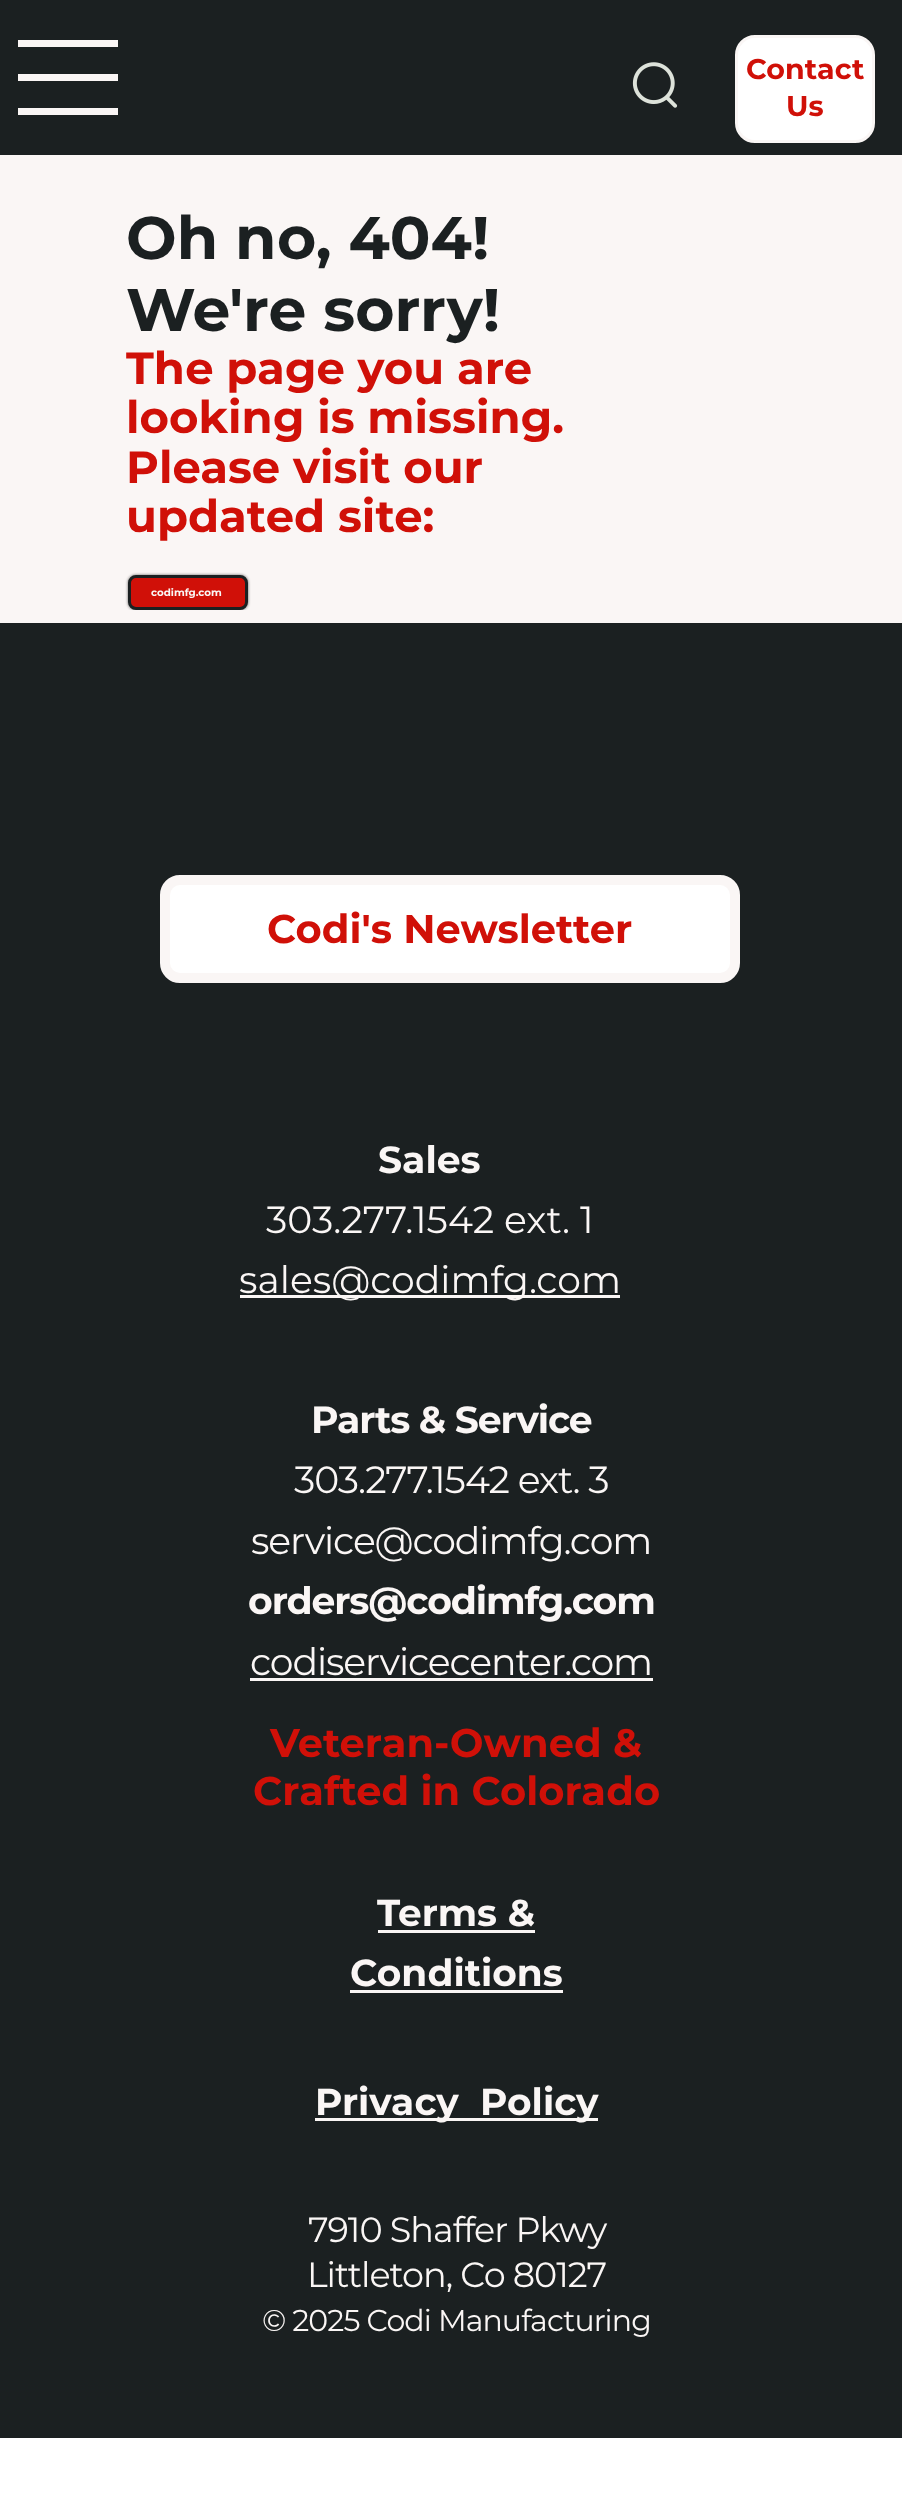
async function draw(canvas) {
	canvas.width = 902;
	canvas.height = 2515;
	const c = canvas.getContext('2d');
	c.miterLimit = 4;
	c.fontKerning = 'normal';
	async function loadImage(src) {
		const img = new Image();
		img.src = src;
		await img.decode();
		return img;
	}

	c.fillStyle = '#fff';
	c.fillRect(0, 0, 902, 2515);
	c.fillStyle = '#1b2021';
	c.fillRect(0, 0, 902, 155);
	c.fillStyle = '#faf6f5';
	c.beginPath();
	c.moveTo(118, 47);
	c.lineTo(18, 47);
	c.lineTo(18, 40);
	c.lineTo(118, 40);
	c.closePath();
	c.moveTo(118, 81);
	c.lineTo(18, 81);
	c.lineTo(18, 74);
	c.lineTo(118, 74);
	c.closePath();
	c.moveTo(118, 115);
	c.lineTo(18, 115);
	c.lineTo(18, 108);
	c.lineTo(118, 108);
	c.closePath();
	c.fill('evenodd');
	c.drawImage(await loadImage('img1.png'), 632, 62, 46, 46);
	c.fillStyle = '#fff';
	c.beginPath();
	c.roundRect(736.5, 36.5, 137, 105, 18.5);
	c.fill();
	c.strokeStyle = '#faf6f5';
	c.lineWidth = 3;
	c.stroke();
	c.font = 'bold 28.5px Montserrat';
	c.fillStyle = '#d01008';
	c.fillText('Contact', 746, 79);
	c.fillText('Us', 786, 116);
	c.fillStyle = '#faf6f5';
	c.fillRect(0, 155, 902, 455);
	c.font = 'bold 60px Montserrat';
	c.fillStyle = '#1b2021';
	c.fillText('Oh no, 404!', 126, 259);
	c.fillText('We\'re sorry!', 126, 331);
	c.font = 'bold 45px Montserrat';
	c.fillStyle = '#d01008';
	for (const [text, x, y] of [
		['The page you are', 126, 384],
		['looking is missing.', 126, 433],
		['Please visit our', 126, 483],
		['updated site:', 126, 532],
	]) {
		c.fillText(text, x, y);
	}
	c.fillStyle = '#00000099';
	c.filter = 'blur(1.5px)';
	c.beginPath();
	c.roundRect(128, 575, 120, 35, 8);
	c.fill();
	c.filter = 'none';
	c.fillStyle = '#d01008';
	c.beginPath();
	c.roundRect(129.5, 576.5, 117, 32, 6.5);
	c.fill();
	c.strokeStyle = '#1b2021';
	c.stroke();
	c.font = 'bold 10.25px Montserrat';
	c.fillStyle = '#faf6f5';
	c.fillText('codimfg.com', 151, 596);
	c.fillRect(0, 610, 902, 13);
	c.fillStyle = '#1b2021';
	c.fillRect(0, 623, 902, 1815);
	c.fillStyle = '#fff';
	c.beginPath();
	c.roundRect(165, 880, 570, 98, 15);
	c.fill();
	c.strokeStyle = '#faf6f5';
	c.lineWidth = 10;
	c.stroke();
	c.font = 'bold 40px Montserrat';
	c.fillStyle = '#d01008';
	c.fillText('Codi\'s Newsletter', 267, 943);
	c.font = 'bold 37.75px Montserrat';
	c.fillStyle = '#faf6f5';
	c.fillText('Sales', 378, 1173);
	c.font = '37.75px Montserrat';
	c.fillText('303.277.1542 ext. 1', 266, 1233);
	c.fillRect(240, 1295, 380, 3);
	c.fillText('sales@codimfg.com', 239, 1293);
	c.letterSpacing = '-1.1px';
	c.font = 'bold 37.75px Montserrat';
	c.fillText('Parts & Service', 311, 1433);
	c.font = '37.75px Montserrat';
	c.fillText('303.277.1542 ext. 3', 294, 1493);
	c.fillText('service@codimfg.com', 251, 1554);
	c.font = 'bold 37.75px Montserrat';
	c.fillText('orders@codimfg.com', 248, 1614);
	c.font = '37.75px Montserrat';
	c.fillText('codiservicecenter.com', 250, 1675);
	c.fillRect(250, 1678, 403, 3);
	c.letterSpacing = '0px';
	c.font = 'bold 40px Montserrat';
	c.fillStyle = '#d01008';
	c.fillText('Veteran-Owned &', 270, 1757);
	c.fillText('Crafted in Colorado', 253, 1805);
	c.font = 'bold 37.5px Montserrat';
	c.fillStyle = '#faf6f5';
	c.fillText('Terms &', 377, 1926);
	c.fillRect(378, 1930, 157, 3);
	c.fillText('Conditions', 350, 1986);
	c.fillRect(350, 1990, 213, 3);
	c.fillRect(315, 2118, 283, 3);
	c.fillText('Privacy  Policy', 315, 2115);
	c.letterSpacing = '-1px';
	c.font = '35px Montserrat';
	c.fillText('7910 Shaffer Pkwy', 308, 2242);
	c.fillText('Littleton, Co 80127', 307, 2287);
	c.letterSpacing = '-0.9px';
	c.font = '30px Montserrat';
	c.fillText('© 2025 Codi Manufacturing', 262, 2331);
}

draw(document.querySelector('canvas'));
